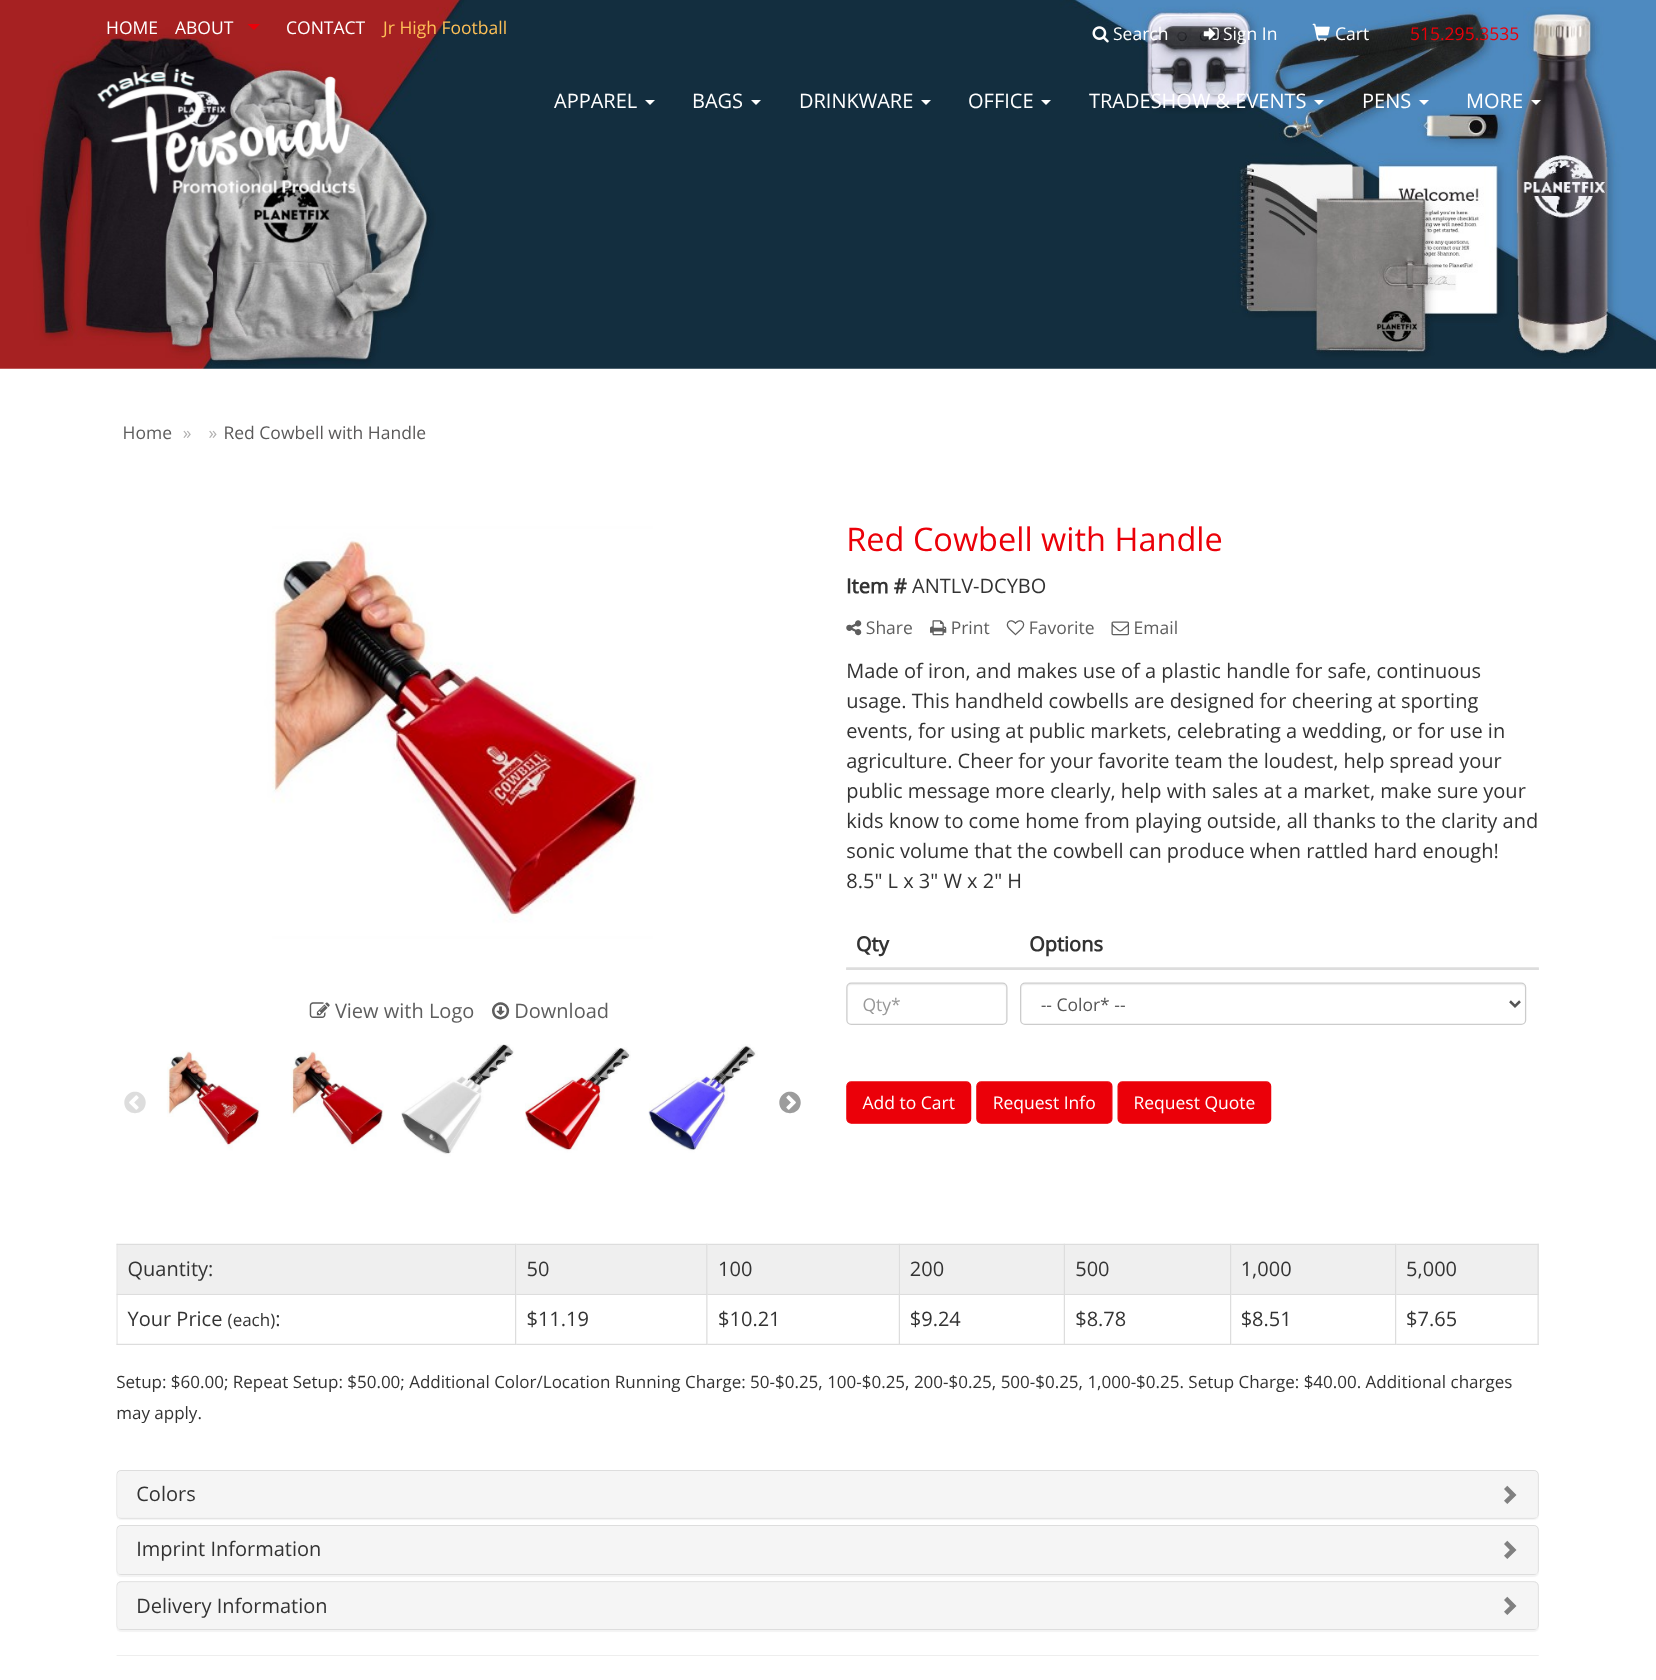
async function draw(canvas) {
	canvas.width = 1656;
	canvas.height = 1680;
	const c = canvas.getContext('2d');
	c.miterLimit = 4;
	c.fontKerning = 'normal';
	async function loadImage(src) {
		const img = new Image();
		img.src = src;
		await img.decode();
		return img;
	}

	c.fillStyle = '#fff';
	c.fillRect(0, 0, 1656, 1680);
	c.drawImage(await loadImage('img1.png'), 0, 0, 1656, 369);
	c.font = '17.5px Open Sans';
	c.fillText('HOME', 106, 34);
	c.fillText('ABOUT', 175, 34);
	c.fillStyle = '#eb0009';
	c.beginPath();
	c.moveTo(247.5, 24);
	c.lineTo(260, 24);
	c.lineTo(254, 30);
	c.closePath();
	c.fill();
	c.fillStyle = '#fff';
	c.fillText('CONTACT', 286, 34);
	c.fillStyle = '#fec057';
	c.fillText('Jr High Football', 383, 34);
	c.drawImage(await loadImage('img2.png'), 1092, 26, 17, 17);
	c.fillStyle = '#fff';
	c.fillText('Search', 1113, 40);
	c.drawImage(await loadImage('img3.png'), 1203, 27, 16, 13);
	c.fillText('Sign In', 1223, 40);
	c.drawImage(await loadImage('img4.png'), 1312, 23, 18, 19);
	c.fillText('Cart', 1335, 40);
	c.fillStyle = '#eb0009';
	c.fillText('515.295.3535', 1410, 40);
	c.drawImage(await loadImage('img5.png'), 97, 68, 259, 126);
	c.font = '20px Open Sans';
	c.fillStyle = '#fff';
	c.fillText('APPAREL', 554, 108);
	c.beginPath();
	c.moveTo(645, 100);
	c.lineTo(655, 100);
	c.lineTo(650, 105);
	c.closePath();
	c.fill();
	c.fillText('BAGS', 692, 108);
	c.beginPath();
	c.moveTo(751, 100);
	c.lineTo(761, 100);
	c.lineTo(756, 105);
	c.closePath();
	c.fill();
	c.fillText('DRINKWARE', 799, 108);
	c.beginPath();
	c.moveTo(921, 100);
	c.lineTo(931, 100);
	c.lineTo(926, 105);
	c.closePath();
	c.fill();
	c.fillText('OFFICE', 968, 108);
	c.beginPath();
	c.moveTo(1041, 100);
	c.lineTo(1051, 100);
	c.lineTo(1046, 105);
	c.closePath();
	c.fill();
	c.fillText('TRADESHOW & EVENTS', 1089, 108);
	c.beginPath();
	c.moveTo(1314, 100);
	c.lineTo(1324, 100);
	c.lineTo(1319, 105);
	c.closePath();
	c.fill();
	c.fillText('PENS', 1362, 108);
	c.beginPath();
	c.moveTo(1419, 100);
	c.lineTo(1429, 100);
	c.lineTo(1424, 105);
	c.closePath();
	c.fill();
	c.fillText('MORE', 1466, 108);
	c.beginPath();
	c.moveTo(1531, 100);
	c.lineTo(1541, 100);
	c.lineTo(1536, 105);
	c.closePath();
	c.fill();
	c.drawImage(await loadImage('img6.png'), 116, 425, 1423, 1231);
}

draw(document.querySelector('canvas'));
